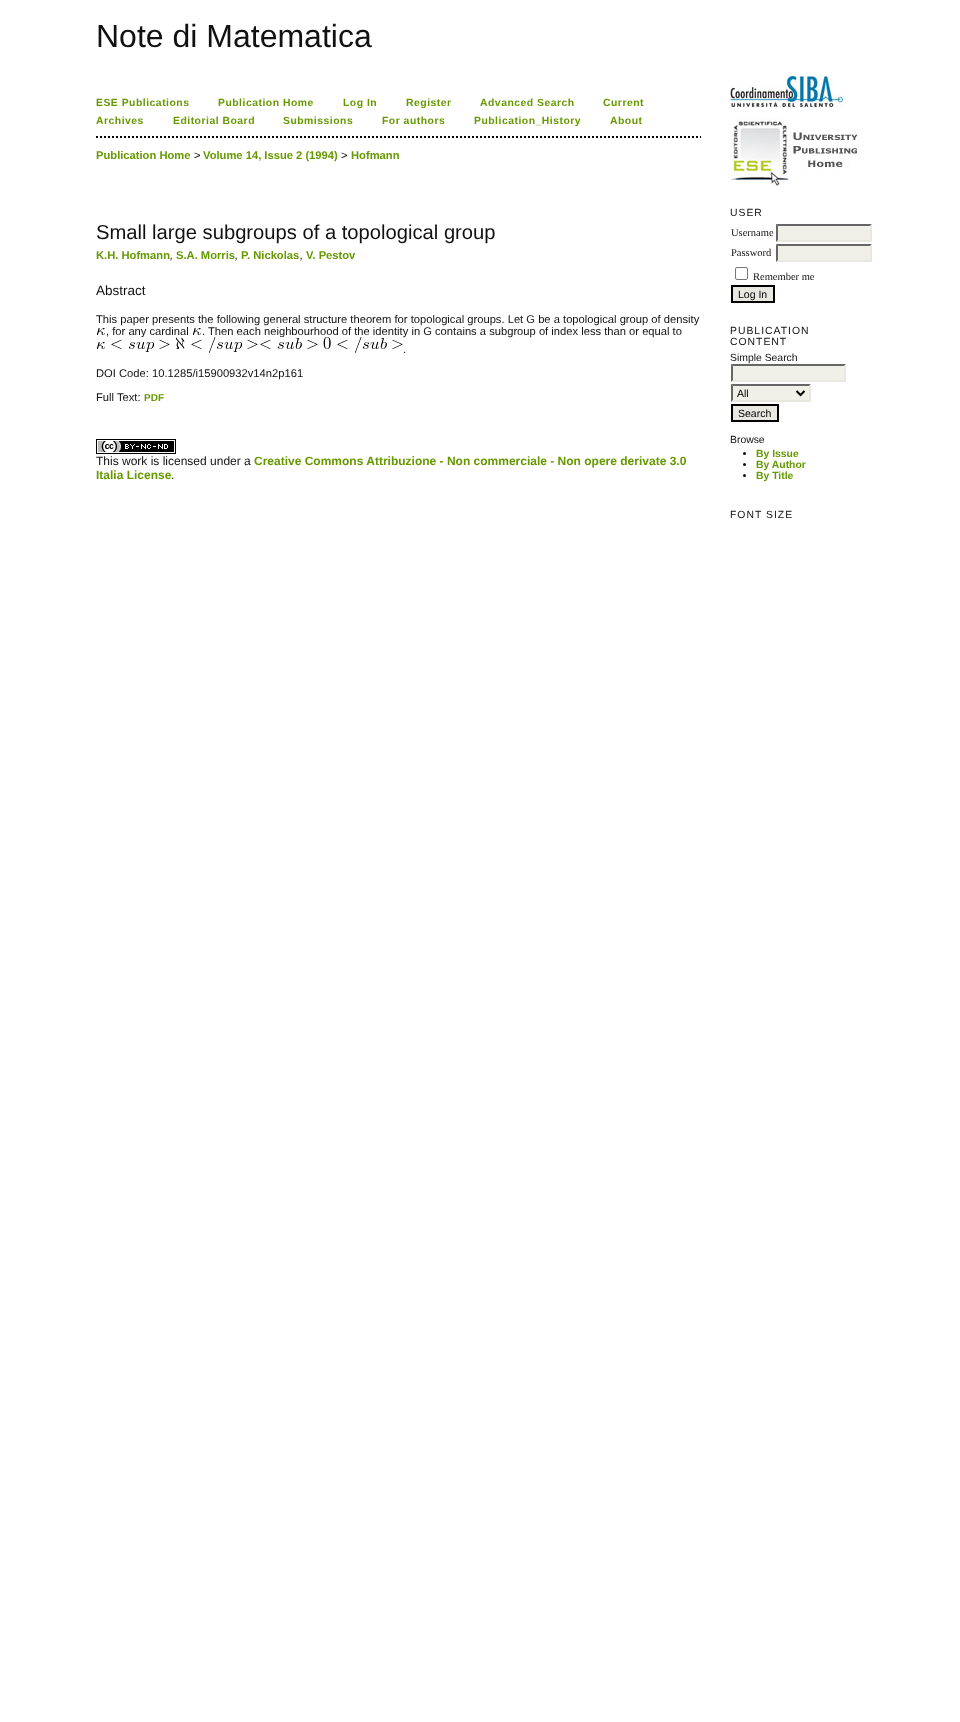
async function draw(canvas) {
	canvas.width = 960;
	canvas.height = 1722;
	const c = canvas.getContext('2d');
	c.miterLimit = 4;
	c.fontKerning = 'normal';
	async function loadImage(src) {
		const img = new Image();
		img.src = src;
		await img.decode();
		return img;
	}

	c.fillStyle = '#fff';
	c.fillRect(0, 0, 960, 1722);
	c.font = '32px Liberation Sans';
	c.fillStyle = '#111';
	c.fillText('Note di Matematica', 96, 47);
	c.beginPath();
	c.moveTo(96, 137);
	c.lineTo(701, 137);
	c.strokeStyle = '#000';
	c.lineWidth = 2;
	c.setLineDash([2, 2]);
	c.stroke();
	c.letterSpacing = '0.5px';
	c.font = 'bold 10.4px Liberation Sans';
	c.fillStyle = '#690';
	for (const [text, x, y] of [
		['ESE Publications', 96, 106],
		['Publication Home', 218, 106],
		['Log In', 343, 106],
		['Register', 406, 106],
		['Advanced Search', 480, 106],
		['Current', 603, 106],
		['Archives', 96, 124],
		['Editorial Board', 173, 124],
		['Submissions', 283, 124],
		['For authors', 382, 124],
		['Publication_History', 474, 124],
		['About', 610, 124],
	]) {
		c.fillText(text, x, y);
	}
	c.letterSpacing = '0px';
	c.font = 'bold 11.2px Liberation Sans';
	c.fillText('Publication Home', 96, 159);
	c.font = '11.2px Liberation Sans';
	c.fillStyle = '#111';
	c.fillText('>', 194, 159);
	c.font = 'bold 11.2px Liberation Sans';
	c.fillStyle = '#690';
	c.fillText('Volume 14, Issue 2 (1994)', 203, 159);
	c.font = '11.2px Liberation Sans';
	c.fillStyle = '#111';
	c.fillText('>', 341, 159);
	c.font = 'bold 11.2px Liberation Sans';
	c.fillStyle = '#690';
	c.fillText('Hofmann', 351, 159);
	c.font = '20.2px Liberation Sans';
	c.fillStyle = '#111';
	c.fillText('Small large subgroups of a topological group', 96, 239);
	c.font = 'bold 11.2px Liberation Sans';
	c.fillStyle = '#690';
	c.fillText('K.H. Hofmann', 96, 259);
	c.font = 'italic 11.2px Liberation Sans';
	c.fillStyle = '#111';
	c.fillText(',', 170, 259);
	c.font = 'bold 11.2px Liberation Sans';
	c.fillStyle = '#690';
	c.fillText('S.A. Morris', 176, 259);
	c.font = 'italic 11.2px Liberation Sans';
	c.fillStyle = '#111';
	c.fillText(',', 235, 259);
	c.font = 'bold 11.2px Liberation Sans';
	c.fillStyle = '#690';
	c.fillText('P. Nickolas', 241, 259);
	c.font = 'italic 11.2px Liberation Sans';
	c.fillStyle = '#111';
	c.fillText(',', 300, 259);
	c.font = 'bold 11.2px Liberation Sans';
	c.fillStyle = '#690';
	c.fillText('V. Pestov', 306, 259);
	c.font = '13.5px Liberation Sans';
	c.fillStyle = '#111';
	c.fillText('Abstract', 96, 295);
	c.font = '11.2px Liberation Sans';
	c.fillText('This paper presents the following general structure theorem for topological groups. Let G be a topological group of density', 96, 323);
	c.drawImage(await loadImage('img1.png'), 97, 328, 8, 7);
	c.fillText(', for any cardinal', 106, 335);
	c.drawImage(await loadImage('img1.png'), 193, 328, 8, 7);
	c.fillText('. Then each neighbourhood of the identity in G contains a subgroup of index less than or equal to', 202, 335);
	c.drawImage(await loadImage('img2.png'), 97, 337, 306, 16);
	for (const [text, x, y] of [
		['.', 403, 353],
		['DOI Code: 10.1285/i15900932v14n2p161', 96, 377],
		['Full Text:', 96, 401],
	]) {
		c.fillText(text, x, y);
	}
	c.font = 'bold 10px Liberation Sans';
	c.fillStyle = '#690';
	c.fillText('PDF', 144, 401);
	c.drawImage(await loadImage('img3.png'), 96, 439, 80, 15);
	c.font = '12px Liberation Sans';
	c.fillStyle = '#111';
	c.fillText('This work is licensed under a', 96, 465);
	c.font = 'bold 12px Liberation Sans';
	c.fillStyle = '#690';
	c.fillText('Creative Commons Attribuzione - Non commerciale - Non opere derivate 3.0', 254, 465);
	c.fillText('Italia License', 96, 479);
	c.font = '12px Liberation Sans';
	c.fillStyle = '#111';
	c.fillText('.', 171, 479);
	c.drawImage(await loadImage('img4.png'), 730, 76, 113, 31);
	c.drawImage(await loadImage('img5.png'), 730, 118, 128, 68);
	c.letterSpacing = '1px';
	c.font = '10.4px Liberation Sans';
	c.fillText('USER', 730, 216);
	c.letterSpacing = '0px';
	c.font = '10.5px Liberation Serif';
	c.fillText('Username', 731, 236);
	c.fillStyle = '#f0f0e8';
	c.fillRect(776, 224, 96, 18);
	c.fillStyle = '#666';
	c.beginPath();
	c.moveTo(776, 224);
	c.lineTo(872, 224);
	c.lineTo(870, 226);
	c.lineTo(778, 226);
	c.closePath();
	c.fill();
	c.fillStyle = '#e8e8e1';
	c.beginPath();
	c.moveTo(872, 224);
	c.lineTo(872, 242);
	c.lineTo(870, 240);
	c.lineTo(870, 226);
	c.closePath();
	c.fill();
	c.beginPath();
	c.moveTo(872, 242);
	c.lineTo(776, 242);
	c.lineTo(778, 240);
	c.lineTo(870, 240);
	c.closePath();
	c.fill();
	c.fillStyle = '#666';
	c.beginPath();
	c.moveTo(776, 242);
	c.lineTo(776, 224);
	c.lineTo(778, 226);
	c.lineTo(778, 240);
	c.closePath();
	c.fill();
	c.fillStyle = '#111';
	c.fillText('Password', 731, 256);
	c.fillStyle = '#f0f0e8';
	c.fillRect(776, 244, 96, 18);
	c.fillStyle = '#666';
	c.beginPath();
	c.moveTo(776, 244);
	c.lineTo(872, 244);
	c.lineTo(870, 246);
	c.lineTo(778, 246);
	c.closePath();
	c.fill();
	c.fillStyle = '#e8e8e1';
	c.beginPath();
	c.moveTo(872, 244);
	c.lineTo(872, 262);
	c.lineTo(870, 260);
	c.lineTo(870, 246);
	c.closePath();
	c.fill();
	c.beginPath();
	c.moveTo(872, 262);
	c.lineTo(776, 262);
	c.lineTo(778, 260);
	c.lineTo(870, 260);
	c.closePath();
	c.fill();
	c.fillStyle = '#666';
	c.beginPath();
	c.moveTo(776, 262);
	c.lineTo(776, 244);
	c.lineTo(778, 246);
	c.lineTo(778, 260);
	c.closePath();
	c.fill();
	c.beginPath();
	c.roundRect(735.5, 267.5, 12, 12, 1.5);
	c.strokeStyle = '#767676';
	c.lineWidth = 1;
	c.setLineDash([]);
	c.stroke();
	c.fillStyle = '#111';
	c.fillText('Remember me', 753, 280);
	c.fillStyle = '#e8e8e1';
	c.beginPath();
	c.rect(732, 286, 42, 16);
	c.fill();
	c.strokeStyle = '#000';
	c.lineWidth = 2;
	c.stroke();
	c.font = '10.5px Liberation Sans';
	c.fillStyle = '#000';
	c.fillText('Log In', 738, 298);
	c.letterSpacing = '1px';
	c.font = '10.4px Liberation Sans';
	c.fillStyle = '#111';
	c.fillText('PUBLICATION', 730, 334);
	c.fillText('CONTENT', 730, 345);
	c.letterSpacing = '0px';
	c.fillText('Simple Search', 730, 361);
	c.fillStyle = '#f0f0e8';
	c.fillRect(731, 364, 115, 18);
	c.fillStyle = '#666';
	c.beginPath();
	c.moveTo(731, 364);
	c.lineTo(846, 364);
	c.lineTo(844, 366);
	c.lineTo(733, 366);
	c.closePath();
	c.fill();
	c.fillStyle = '#e8e8e1';
	c.beginPath();
	c.moveTo(846, 364);
	c.lineTo(846, 382);
	c.lineTo(844, 380);
	c.lineTo(844, 366);
	c.closePath();
	c.fill();
	c.beginPath();
	c.moveTo(846, 382);
	c.lineTo(731, 382);
	c.lineTo(733, 380);
	c.lineTo(844, 380);
	c.closePath();
	c.fill();
	c.fillStyle = '#666';
	c.beginPath();
	c.moveTo(731, 382);
	c.lineTo(731, 364);
	c.lineTo(733, 366);
	c.lineTo(733, 380);
	c.closePath();
	c.fill();
	c.fillStyle = '#f0f0e8';
	c.fillRect(731, 384, 80, 18);
	c.fillStyle = '#666';
	c.beginPath();
	c.moveTo(731, 384);
	c.lineTo(811, 384);
	c.lineTo(809, 386);
	c.lineTo(733, 386);
	c.closePath();
	c.fill();
	c.fillStyle = '#e8e8e1';
	c.beginPath();
	c.moveTo(811, 384);
	c.lineTo(811, 402);
	c.lineTo(809, 400);
	c.lineTo(809, 386);
	c.closePath();
	c.fill();
	c.beginPath();
	c.moveTo(811, 402);
	c.lineTo(731, 402);
	c.lineTo(733, 400);
	c.lineTo(809, 400);
	c.closePath();
	c.fill();
	c.fillStyle = '#666';
	c.beginPath();
	c.moveTo(731, 402);
	c.lineTo(731, 384);
	c.lineTo(733, 386);
	c.lineTo(733, 400);
	c.closePath();
	c.fill();
	c.beginPath();
	c.moveTo(796.5, 391);
	c.lineTo(800.5, 395);
	c.lineTo(804.5, 391);
	c.stroke();
	c.font = '10.5px Liberation Sans';
	c.fillStyle = '#000';
	c.fillText('All', 737, 397);
	c.fillStyle = '#e8e8e1';
	c.beginPath();
	c.rect(732, 405, 46, 16);
	c.fill();
	c.stroke();
	c.fillStyle = '#000';
	c.fillText('Search', 738, 417);
	c.font = '10.4px Liberation Sans';
	c.fillStyle = '#111';
	c.fillText('Browse', 730, 443);
	c.beginPath();
	c.arc(744.5, 453.5, 1.5, 0, 2 * Math.PI);
	c.fill();
	c.font = 'bold 10.4px Liberation Sans';
	c.fillStyle = '#690';
	c.fillText('By Issue', 756, 457);
	c.fillStyle = '#111';
	c.beginPath();
	c.arc(744.5, 464.5, 1.5, 0, 2 * Math.PI);
	c.fill();
	c.fillStyle = '#690';
	c.fillText('By Author', 756, 468);
	c.fillStyle = '#111';
	c.beginPath();
	c.arc(744.5, 475.5, 1.5, 0, 2 * Math.PI);
	c.fill();
	c.fillStyle = '#690';
	c.fillText('By Title', 756, 479);
	c.letterSpacing = '1px';
	c.font = '10.4px Liberation Sans';
	c.fillStyle = '#111';
	c.fillText('FONT SIZE', 730, 518);
}

draw(document.querySelector('canvas'));
